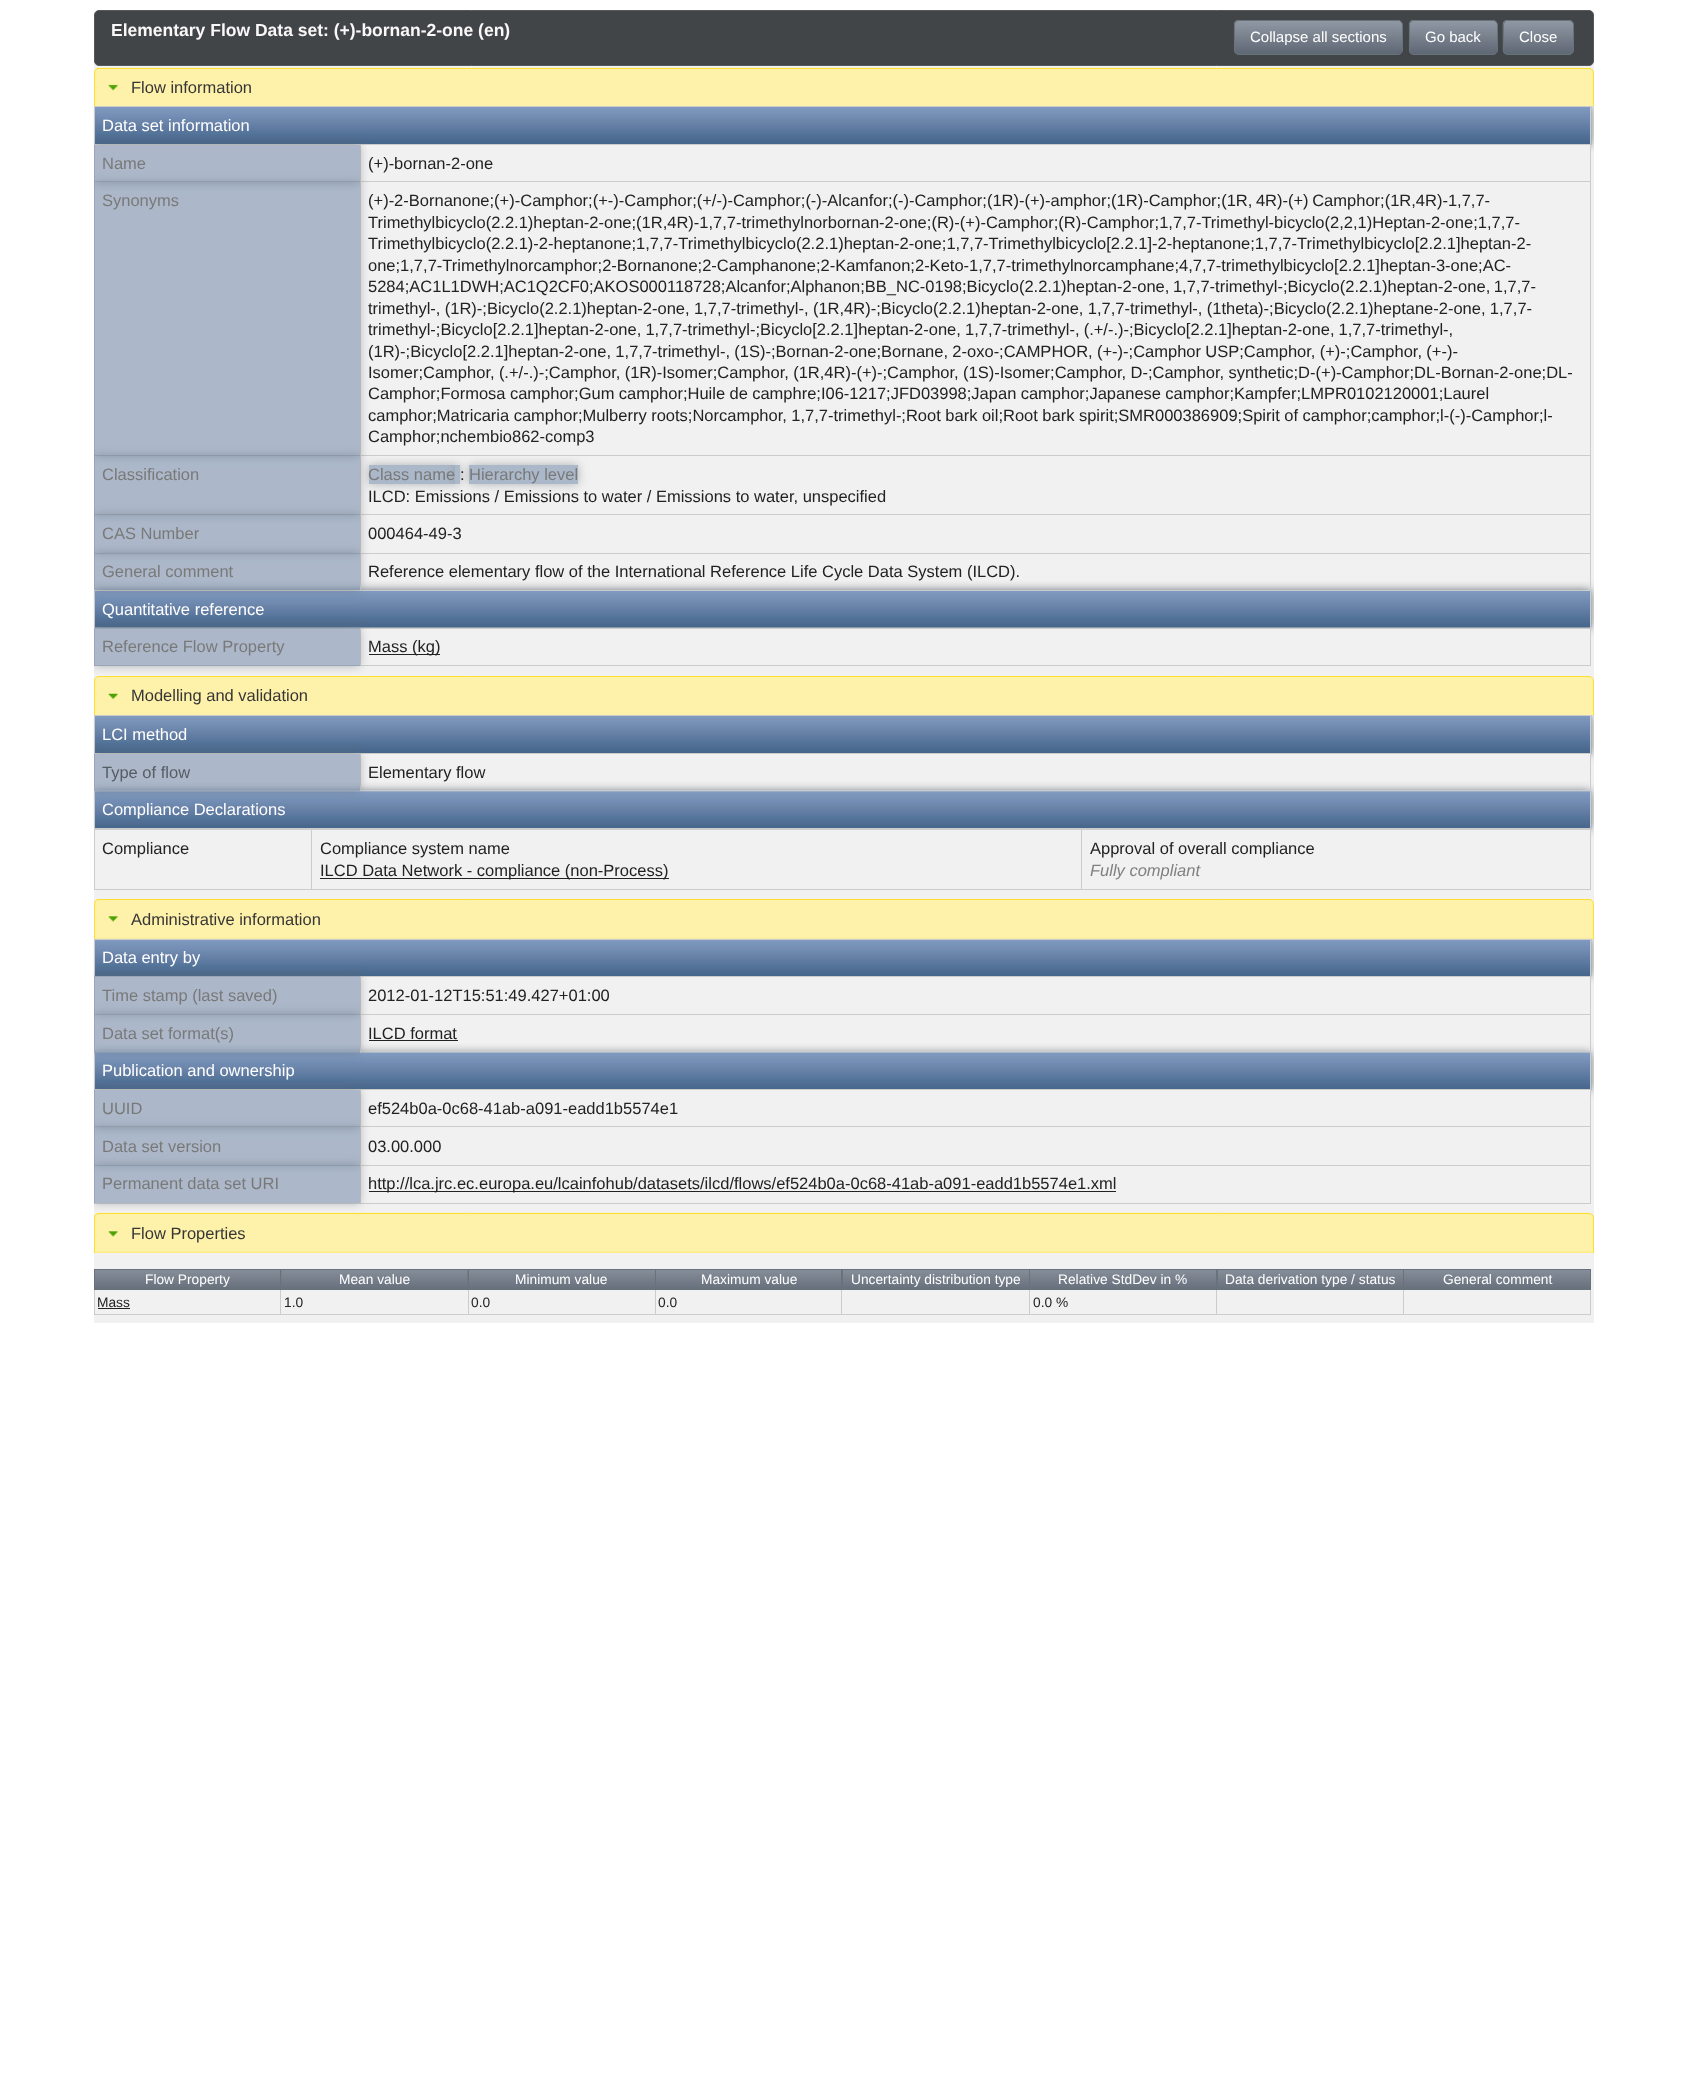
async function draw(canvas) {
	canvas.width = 1686;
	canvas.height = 2080;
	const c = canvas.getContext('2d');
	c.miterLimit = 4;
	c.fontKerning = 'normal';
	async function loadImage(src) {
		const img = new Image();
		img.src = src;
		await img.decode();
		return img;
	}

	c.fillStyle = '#fff';
	c.fillRect(0, 0, 1686, 2080);
	c.fillStyle = '#f2f1f1';
	c.beginPath();
	c.roundRect(94, 10, 1500, 1311, 5);
	c.fill();
	c.fillStyle = '#424548';
	c.beginPath();
	c.roundRect(94.5, 10.5, 1499, 55, 4.5);
	c.fill();
	c.strokeStyle = '#56585c';
	c.stroke();
	c.font = 'bold 17.5px Liberation Sans';
	c.fillStyle = '#f9f7f7';
	c.fillText('Elementary Flow Data set: (+)-bornan-2-one (en)', 111, 36);
	c.drawImage(await loadImage('img1.png'), 1233, 20, 170, 35);
	c.beginPath();
	c.roundRect(1234.5, 20.5, 168, 34, 4.5);
	c.strokeStyle = '#68727b';
	c.stroke();
	c.font = '15px Liberation Sans';
	c.fillStyle = '#fff';
	c.fillText('Collapse all sections', 1250, 42);
	c.drawImage(await loadImage('img2.png'), 1408, 20, 90, 35);
	c.beginPath();
	c.roundRect(1409.5, 20.5, 88, 34, 4.5);
	c.stroke();
	c.fillText('Go back', 1425, 42);
	c.drawImage(await loadImage('img3.png'), 1502, 20, 72, 35);
	c.beginPath();
	c.roundRect(1503.5, 20.5, 70, 34, 4.5);
	c.stroke();
	c.fillText('Close', 1519, 42);
	c.drawImage(await loadImage('img4.png'), 93, 67, 1501, 39);
	c.beginPath();
	c.roundRect(94.5, 68.5, 1499, 39, [4.5, 4.5, 0, 0]);
	c.strokeStyle = '#ffde2e';
	c.stroke();
	c.drawImage(await loadImage('img5.png'), 108, 84, 10, 7);
	c.font = '16.5px Liberation Sans';
	c.fillStyle = '#363636';
	c.fillText('Flow information', 131, 93);
	c.fillStyle = '#f2f1f1';
	c.fillRect(94, 106, 1500, 2);
	c.save();
	c.beginPath();
	c.rect(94, 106, 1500, 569);
	c.clip();
	c.fillStyle = '#68727b';
	c.filter = 'blur(5px)';
	c.beginPath();
	c.rect(94, 106, 1497, 39);
	c.fill();
	c.filter = 'none';
	c.restore();
	c.drawImage(await loadImage('img6.png'), 93, 106, 1499, 39);
	for (const [x, y, w, h, color] of [
		[94, 106, 1497, 1, '#ccc'],
		[94, 144, 1497, 1, '#ccc'],
		[94, 181, 1497, 1, '#ccc'],
		[94, 455, 1497, 1, '#ccc'],
		[94, 514, 1497, 1, '#ccc'],
		[94, 553, 1497, 1, '#ccc'],
	]) {
		c.fillStyle = color;
		c.fillRect(x, y, w, h);
	}
	c.save();
	c.beginPath();
	c.rect(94, 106, 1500, 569);
	c.clip();
	c.fillStyle = '#68727b';
	c.filter = 'blur(5px)';
	c.beginPath();
	c.rect(94, 590, 1497, 38);
	c.fill();
	c.filter = 'none';
	c.restore();
	c.drawImage(await loadImage('img7.png'), 93, 590, 1499, 38);
	for (const [x, y, w, h, color] of [
		[94, 590, 1497, 1, '#ccc'],
		[94, 628, 1497, 1, '#ccc'],
		[1590, 628, 1, 38, '#ccc'],
		[1590, 590, 1, 39, '#ccc'],
		[1590, 553, 1, 38, '#ccc'],
		[1590, 514, 1, 40, '#ccc'],
		[1590, 455, 1, 60, '#ccc'],
		[1590, 181, 1, 275, '#ccc'],
		[1590, 144, 1, 39, '#ccc'],
		[1590, 106, 1, 39, '#ccc'],
		[94, 665, 1497, 1, '#ccc'],
		[94, 628, 1, 38, '#ccc'],
		[94, 590, 1, 39, '#ccc'],
		[94, 553, 1, 38, '#ccc'],
		[94, 514, 1, 40, '#ccc'],
		[94, 455, 1, 60, '#ccc'],
		[94, 181, 1, 275, '#ccc'],
		[94, 144, 1, 39, '#ccc'],
		[94, 106, 1, 39, '#ccc'],
	]) {
		c.fillStyle = color;
		c.fillRect(x, y, w, h);
	}
	c.fillStyle = '#fff';
	c.fillText('Data set information', 102, 131);
	c.fillStyle = '#f2f1f1';
	c.fillRect(95, 145, 1495, 10);
	c.fillStyle = '#ccc';
	c.fillRect(360, 144, 1, 447);
	c.save();
	c.beginPath();
	c.rect(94, 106, 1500, 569);
	c.clip();
	c.beginPath();
	c.moveTo(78, 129);
	c.lineTo(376, 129);
	c.lineTo(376, 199);
	c.lineTo(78, 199);
	c.closePath();
	c.moveTo(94, 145);
	c.lineTo(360, 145);
	c.lineTo(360, 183);
	c.lineTo(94, 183);
	c.closePath();
	c.clip('evenodd');
	c.fillStyle = '#68727b80';
	c.filter = 'blur(5px)';
	c.beginPath();
	c.rect(94, 145, 266, 38);
	c.fill();
	c.filter = 'none';
	c.restore();
	c.fillStyle = '#6580a180';
	c.fillRect(94, 145, 266, 38);
	c.fillStyle = '#797979';
	c.fillText('Name', 102, 169);
	c.fillStyle = '#222';
	c.fillText('(+)-bornan-2-one', 368, 169);
	c.save();
	c.beginPath();
	c.rect(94, 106, 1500, 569);
	c.clip();
	c.beginPath();
	c.moveTo(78, 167);
	c.lineTo(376, 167);
	c.lineTo(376, 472);
	c.lineTo(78, 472);
	c.closePath();
	c.moveTo(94, 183);
	c.lineTo(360, 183);
	c.lineTo(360, 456);
	c.lineTo(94, 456);
	c.closePath();
	c.clip('evenodd');
	c.fillStyle = '#68727b80';
	c.filter = 'blur(5px)';
	c.beginPath();
	c.rect(94, 183, 266, 273);
	c.fill();
	c.filter = 'none';
	c.restore();
	c.fillStyle = '#6580a180';
	c.fillRect(94, 183, 266, 273);
	c.fillStyle = '#797979';
	c.fillText('Synonyms', 102, 206);
	c.wordSpacing = '-1px';
	c.fillStyle = '#222';
	c.fillText('(+)-2-Bornanone;(+)-Camphor;(+-)-Camphor;(+/-)-Camphor;(-)-Alcanfor;(-)-Camphor;(1R)-(+)-amphor;(1R)-Camphor;(1R, 4R)-(+) Camphor;(1R,4R)-1,7,7-', 368, 206);
	c.wordSpacing = '0px';
	for (const [text, x, y] of [
		['Trimethylbicyclo(2.2.1)heptan-2-one;(1R,4R)-1,7,7-trimethylnorbornan-2-one;(R)-(+)-Camphor;(R)-Camphor;1,7,7-Trimethyl-bicyclo(2,2,1)Heptan-2-one;1,7,7-', 368, 228],
		['Trimethylbicyclo(2.2.1)-2-heptanone;1,7,7-Trimethylbicyclo(2.2.1)heptan-2-one;1,7,7-Trimethylbicyclo[2.2.1]-2-heptanone;1,7,7-Trimethylbicyclo[2.2.1]heptan-2-', 368, 249],
		['one;1,7,7-Trimethylnorcamphor;2-Bornanone;2-Camphanone;2-Kamfanon;2-Keto-1,7,7-trimethylnorcamphane;4,7,7-trimethylbicyclo[2.2.1]heptan-3-one;AC-', 368, 271],
	]) {
		c.fillText(text, x, y);
	}
	c.wordSpacing = '-1px';
	c.fillText('5284;AC1L1DWH;AC1Q2CF0;AKOS000118728;Alcanfor;Alphanon;BB_NC-0198;Bicyclo(2.2.1)heptan-2-one, 1,7,7-trimethyl-;Bicyclo(2.2.1)heptan-2-one, 1,7,7-', 368, 292);
	c.wordSpacing = '-0.25px';
	c.fillText('trimethyl-, (1R)-;Bicyclo(2.2.1)heptan-2-one, 1,7,7-trimethyl-, (1R,4R)-;Bicyclo(2.2.1)heptan-2-one, 1,7,7-trimethyl-, (1theta)-;Bicyclo(2.2.1)heptane-2-one, 1,7,7-', 368, 314);
	c.wordSpacing = '-0.5px';
	c.fillText('trimethyl-;Bicyclo[2.2.1]heptan-2-one, 1,7,7-trimethyl-;Bicyclo[2.2.1]heptan-2-one, 1,7,7-trimethyl-, (.+/-.)-;Bicyclo[2.2.1]heptan-2-one, 1,7,7-trimethyl-,', 368, 335);
	c.wordSpacing = '-0.25px';
	for (const [text, x, y] of [
		['(1R)-;Bicyclo[2.2.1]heptan-2-one, 1,7,7-trimethyl-, (1S)-;Bornan-2-one;Bornane, 2-oxo-;CAMPHOR, (+-)-;Camphor USP;Camphor, (+)-;Camphor, (+-)-', 368, 357],
		['Isomer;Camphor, (.+/-.)-;Camphor, (1R)-Isomer;Camphor, (1R,4R)-(+)-;Camphor, (1S)-Isomer;Camphor, D-;Camphor, synthetic;D-(+)-Camphor;DL-Bornan-2-one;DL-', 368, 378],
		['Camphor;Formosa camphor;Gum camphor;Huile de camphre;I06-1217;JFD03998;Japan camphor;Japanese camphor;Kampfer;LMPR0102120001;Laurel', 368, 399],
	]) {
		c.fillText(text, x, y);
	}
	c.wordSpacing = '-0.1px';
	c.fillText('camphor;Matricaria camphor;Mulberry roots;Norcamphor, 1,7,7-trimethyl-;Root bark oil;Root bark spirit;SMR000386909;Spirit of camphor;camphor;l-(-)-Camphor;l-', 368, 421);
	c.wordSpacing = '0px';
	c.fillText('Camphor;nchembio862-comp3', 368, 442);
	c.save();
	c.beginPath();
	c.rect(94, 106, 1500, 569);
	c.clip();
	c.beginPath();
	c.moveTo(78, 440);
	c.lineTo(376, 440);
	c.lineTo(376, 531);
	c.lineTo(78, 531);
	c.closePath();
	c.moveTo(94, 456);
	c.lineTo(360, 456);
	c.lineTo(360, 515);
	c.lineTo(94, 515);
	c.closePath();
	c.clip('evenodd');
	c.fillStyle = '#68727b80';
	c.filter = 'blur(5px)';
	c.beginPath();
	c.rect(94, 456, 266, 59);
	c.fill();
	c.filter = 'none';
	c.restore();
	c.fillStyle = '#6580a180';
	c.fillRect(94, 456, 266, 59);
	c.fillStyle = '#797979';
	c.fillText('Classification', 102, 480);
	c.fillStyle = '#68727b80';
	c.filter = 'blur(5px)';
	c.beginPath();
	c.rect(369, 465, 86, 19);
	c.fill();
	c.filter = 'none';
	c.fillStyle = '#abb8c9';
	c.fillRect(369, 465, 86, 19);
	c.fillStyle = '#68727b80';
	c.filter = 'blur(5px)';
	c.beginPath();
	c.rect(455, 465, 5, 19);
	c.fill();
	c.filter = 'none';
	c.fillStyle = '#797979';
	c.fillText('Class name', 368, 480);
	c.fillStyle = '#acb9c9';
	c.fillRect(455, 465, 5, 19);
	c.fillStyle = '#222';
	c.fillText(':', 460, 480);
	c.fillStyle = '#68727b80';
	c.filter = 'blur(5px)';
	c.beginPath();
	c.rect(469, 465, 109, 19);
	c.fill();
	c.filter = 'none';
	c.fillStyle = '#abb8c9';
	c.fillRect(469, 465, 109, 19);
	c.fillStyle = '#797979';
	c.fillText('Hierarchy level', 469, 480);
	c.fillStyle = '#222';
	c.fillText('ILCD: Emissions / Emissions to water / Emissions to water, unspecified', 368, 502);
	c.save();
	c.beginPath();
	c.rect(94, 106, 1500, 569);
	c.clip();
	c.beginPath();
	c.moveTo(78, 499);
	c.lineTo(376, 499);
	c.lineTo(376, 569);
	c.lineTo(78, 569);
	c.closePath();
	c.moveTo(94, 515);
	c.lineTo(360, 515);
	c.lineTo(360, 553);
	c.lineTo(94, 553);
	c.closePath();
	c.clip('evenodd');
	c.fillStyle = '#68727b80';
	c.filter = 'blur(5px)';
	c.beginPath();
	c.rect(94, 515, 266, 38);
	c.fill();
	c.filter = 'none';
	c.restore();
	c.fillStyle = '#6580a180';
	c.fillRect(94, 515, 266, 38);
	c.fillStyle = '#797979';
	c.fillText('CAS Number', 102, 539);
	c.fillStyle = '#222';
	c.fillText('000464-49-3', 368, 539);
	c.save();
	c.beginPath();
	c.rect(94, 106, 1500, 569);
	c.clip();
	c.beginPath();
	c.moveTo(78, 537);
	c.lineTo(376, 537);
	c.lineTo(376, 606);
	c.lineTo(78, 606);
	c.closePath();
	c.moveTo(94, 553);
	c.lineTo(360, 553);
	c.lineTo(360, 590);
	c.lineTo(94, 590);
	c.closePath();
	c.clip('evenodd');
	c.fillStyle = '#68727b80';
	c.filter = 'blur(5px)';
	c.beginPath();
	c.rect(94, 553, 266, 37);
	c.fill();
	c.filter = 'none';
	c.restore();
	c.fillStyle = '#6580a180';
	c.fillRect(94, 553, 266, 37);
	c.fillStyle = '#797979';
	c.fillText('General comment', 102, 577);
	c.fillStyle = '#222';
	c.fillText('Reference elementary flow of the International Reference Life Cycle Data System (ILCD).', 368, 577);
	c.fillStyle = '#fff';
	c.fillText('Quantitative reference', 102, 615);
	for (const [x, y, w, h, color] of [
		[95, 629, 1495, 9, '#f2f1f1'],
		[360, 628, 1, 38, '#ccc'],
		[369, 654, 71, 1, '#222'],
	]) {
		c.fillStyle = color;
		c.fillRect(x, y, w, h);
	}
	c.save();
	c.beginPath();
	c.rect(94, 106, 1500, 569);
	c.clip();
	c.beginPath();
	c.moveTo(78, 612);
	c.lineTo(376, 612);
	c.lineTo(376, 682);
	c.lineTo(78, 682);
	c.closePath();
	c.moveTo(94, 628);
	c.lineTo(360, 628);
	c.lineTo(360, 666);
	c.lineTo(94, 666);
	c.closePath();
	c.clip('evenodd');
	c.fillStyle = '#68727b80';
	c.filter = 'blur(5px)';
	c.beginPath();
	c.rect(94, 628, 266, 38);
	c.fill();
	c.filter = 'none';
	c.restore();
	c.fillStyle = '#6580a180';
	c.fillRect(94, 628, 266, 38);
	c.fillStyle = '#797979';
	c.fillText('Reference Flow Property', 102, 652);
	c.fillStyle = '#222';
	c.fillText('Mass (kg)', 368, 652);
	c.drawImage(await loadImage('img8.png'), 93, 676, 1501, 39);
	c.beginPath();
	c.roundRect(94.5, 676.5, 1499, 39, [4.5, 4.5, 0, 0]);
	c.stroke();
	c.drawImage(await loadImage('img9.png'), 108, 693, 10, 6);
	c.fillStyle = '#363636';
	c.fillText('Modelling and validation', 131, 701);
	c.fillStyle = '#f2f1f1';
	c.fillRect(94, 715, 1500, 1);
	c.save();
	c.beginPath();
	c.rect(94, 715, 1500, 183);
	c.clip();
	c.fillStyle = '#68727b';
	c.filter = 'blur(5px)';
	c.beginPath();
	c.rect(94, 715, 1497, 39);
	c.fill();
	c.filter = 'none';
	c.restore();
	c.drawImage(await loadImage('img10.png'), 93, 715, 1499, 39);
	c.fillStyle = '#ccc';
	c.fillRect(94, 715, 1497, 1);
	c.fillRect(94, 753, 1497, 1);
	c.save();
	c.beginPath();
	c.rect(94, 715, 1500, 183);
	c.clip();
	c.fillStyle = '#68727b';
	c.filter = 'blur(5px)';
	c.beginPath();
	c.rect(94, 791, 1497, 38);
	c.fill();
	c.filter = 'none';
	c.restore();
	c.fillRect(94, 790, 1497, 1);
	c.drawImage(await loadImage('img11.png'), 93, 791, 1499, 38);
	for (const [x, y, w, h, color] of [
		[1590, 790, 1, 39, '#ccc'],
		[1590, 753, 1, 38, '#ccc'],
		[1590, 715, 1, 39, '#ccc'],
		[94, 828, 1497, 2, '#ccc'],
		[94, 790, 1, 39, '#ccc'],
		[94, 753, 1, 38, '#ccc'],
		[94, 715, 1, 39, '#ccc'],
	]) {
		c.fillStyle = color;
		c.fillRect(x, y, w, h);
	}
	c.fillStyle = '#fff';
	c.fillText('LCI method', 102, 740);
	c.fillStyle = '#f2f1f1';
	c.fillRect(95, 754, 1495, 10);
	c.fillStyle = '#ccc';
	c.fillRect(360, 753, 1, 38);
	c.save();
	c.beginPath();
	c.rect(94, 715, 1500, 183);
	c.clip();
	c.beginPath();
	c.moveTo(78, 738);
	c.lineTo(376, 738);
	c.lineTo(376, 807);
	c.lineTo(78, 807);
	c.closePath();
	c.moveTo(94, 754);
	c.lineTo(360, 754);
	c.lineTo(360, 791);
	c.lineTo(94, 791);
	c.closePath();
	c.clip('evenodd');
	c.fillStyle = '#68727b80';
	c.filter = 'blur(5px)';
	c.beginPath();
	c.rect(94, 754, 266, 37);
	c.fill();
	c.filter = 'none';
	c.restore();
	c.fillStyle = '#6580a180';
	c.fillRect(94, 754, 266, 37);
	c.fillStyle = '#565c64';
	c.fillText('Type of flow', 102, 778);
	c.fillStyle = '#222';
	c.fillText('Elementary flow', 368, 778);
	c.fillStyle = '#fff';
	c.fillText('Compliance Declarations', 102, 815);
	for (const [x, y, w, h, color] of [
		[95, 830, 1495, 9, '#f2f1f1'],
		[1590, 829, 1, 61, '#ccc'],
		[94, 889, 1497, 1, '#ccc'],
		[94, 829, 1, 61, '#ccc'],
	]) {
		c.fillStyle = color;
		c.fillRect(x, y, w, h);
	}
	c.fillStyle = '#222';
	c.fillText('Compliance', 102, 854);
	c.fillStyle = '#ccc';
	c.fillRect(311, 829, 1, 61);
	c.fillStyle = '#222';
	c.fillText('Compliance system name', 320, 854);
	c.fillRect(320, 878, 349, 1);
	c.fillText('ILCD Data Network - compliance (non-Process)', 320, 876);
	c.fillStyle = '#ccc';
	c.fillRect(1081, 829, 1, 61);
	c.fillStyle = '#222';
	c.fillText('Approval of overall compliance', 1090, 854);
	c.font = 'italic 16.5px Liberation Sans';
	c.fillStyle = '#808080';
	c.fillText('Fully compliant', 1090, 876);
	c.drawImage(await loadImage('img12.png'), 93, 898, 1501, 41);
	c.beginPath();
	c.roundRect(94.5, 899.5, 1499, 40, [4.5, 4.5, 0, 0]);
	c.stroke();
	c.drawImage(await loadImage('img13.png'), 108, 916, 10, 6);
	c.font = '16.5px Liberation Sans';
	c.fillStyle = '#363636';
	c.fillText('Administrative information', 131, 925);
	c.fillStyle = '#f2f1f1';
	c.fillRect(94, 939, 1500, 1);
	c.save();
	c.beginPath();
	c.rect(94, 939, 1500, 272);
	c.clip();
	c.fillStyle = '#68727b';
	c.filter = 'blur(5px)';
	c.beginPath();
	c.rect(94, 939, 1497, 37);
	c.fill();
	c.filter = 'none';
	c.restore();
	c.drawImage(await loadImage('img14.png'), 93, 938, 1499, 39);
	for (const [x, y, w, h, color] of [
		[94, 939, 1497, 1, '#ccc'],
		[94, 976, 1497, 1, '#ccc'],
		[94, 1014, 1497, 1, '#ccc'],
	]) {
		c.fillStyle = color;
		c.fillRect(x, y, w, h);
	}
	c.save();
	c.beginPath();
	c.rect(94, 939, 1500, 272);
	c.clip();
	c.fillStyle = '#68727b';
	c.filter = 'blur(5px)';
	c.beginPath();
	c.rect(94, 1053, 1497, 37);
	c.fill();
	c.filter = 'none';
	c.restore();
	c.fillRect(94, 1051, 1497, 1);
	c.drawImage(await loadImage('img15.png'), 93, 1052, 1499, 38);
	for (const [x, y, w, h, color] of [
		[94, 1089, 1497, 1, '#ccc'],
		[94, 1126, 1497, 1, '#ccc'],
		[94, 1165, 1497, 1, '#ccc'],
		[1590, 1165, 1, 39, '#ccc'],
		[1590, 1126, 1, 40, '#ccc'],
		[1590, 1089, 1, 39, '#ccc'],
		[1590, 1051, 1, 39, '#ccc'],
		[1590, 1014, 1, 39, '#ccc'],
		[1590, 976, 1, 39, '#ccc'],
		[1590, 939, 1, 39, '#ccc'],
		[94, 1203, 1497, 1, '#ccc'],
		[94, 1165, 1, 39, '#ccc'],
		[94, 1126, 1, 40, '#ccc'],
		[94, 1089, 1, 39, '#ccc'],
		[94, 1051, 1, 39, '#ccc'],
		[94, 1014, 1, 39, '#ccc'],
		[94, 976, 1, 39, '#ccc'],
		[94, 939, 1, 39, '#ccc'],
	]) {
		c.fillStyle = color;
		c.fillRect(x, y, w, h);
	}
	c.fillStyle = '#fff';
	c.fillText('Data entry by', 102, 963);
	c.fillStyle = '#f2f1f1';
	c.fillRect(95, 977, 1495, 9);
	c.fillStyle = '#ccc';
	c.fillRect(360, 976, 1, 77);
	c.save();
	c.beginPath();
	c.rect(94, 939, 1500, 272);
	c.clip();
	c.beginPath();
	c.moveTo(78, 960);
	c.lineTo(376, 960);
	c.lineTo(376, 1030);
	c.lineTo(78, 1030);
	c.closePath();
	c.moveTo(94, 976);
	c.lineTo(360, 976);
	c.lineTo(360, 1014);
	c.lineTo(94, 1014);
	c.closePath();
	c.clip('evenodd');
	c.fillStyle = '#68727b80';
	c.filter = 'blur(5px)';
	c.beginPath();
	c.rect(94, 976, 266, 38);
	c.fill();
	c.filter = 'none';
	c.restore();
	c.fillStyle = '#6580a180';
	c.fillRect(94, 976, 266, 38);
	c.fillStyle = '#797979';
	c.fillText('Time stamp (last saved)', 102, 1001);
	c.fillStyle = '#222';
	c.fillText('2012-01-12T15:51:49.427+01:00', 368, 1001);
	c.fillRect(369, 1040, 89, 1);
	c.save();
	c.beginPath();
	c.rect(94, 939, 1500, 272);
	c.clip();
	c.beginPath();
	c.moveTo(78, 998);
	c.lineTo(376, 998);
	c.lineTo(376, 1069);
	c.lineTo(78, 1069);
	c.closePath();
	c.moveTo(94, 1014);
	c.lineTo(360, 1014);
	c.lineTo(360, 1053);
	c.lineTo(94, 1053);
	c.closePath();
	c.clip('evenodd');
	c.fillStyle = '#68727b80';
	c.filter = 'blur(5px)';
	c.beginPath();
	c.rect(94, 1014, 266, 39);
	c.fill();
	c.filter = 'none';
	c.restore();
	c.fillStyle = '#6580a180';
	c.fillRect(94, 1014, 266, 39);
	c.fillStyle = '#797979';
	c.fillText('Data set format(s)', 102, 1039);
	c.fillStyle = '#222';
	c.fillText('ILCD format', 368, 1039);
	c.fillStyle = '#fff';
	c.fillText('Publication and ownership', 102, 1076);
	c.fillStyle = '#f2f1f1';
	c.fillRect(95, 1090, 1495, 10);
	c.fillStyle = '#ccc';
	c.fillRect(360, 1089, 1, 115);
	c.save();
	c.beginPath();
	c.rect(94, 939, 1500, 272);
	c.clip();
	c.beginPath();
	c.moveTo(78, 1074);
	c.lineTo(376, 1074);
	c.lineTo(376, 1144);
	c.lineTo(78, 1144);
	c.closePath();
	c.moveTo(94, 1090);
	c.lineTo(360, 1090);
	c.lineTo(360, 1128);
	c.lineTo(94, 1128);
	c.closePath();
	c.clip('evenodd');
	c.fillStyle = '#68727b80';
	c.filter = 'blur(5px)';
	c.beginPath();
	c.rect(94, 1090, 266, 38);
	c.fill();
	c.filter = 'none';
	c.restore();
	c.fillStyle = '#6580a180';
	c.fillRect(94, 1090, 266, 38);
	c.fillStyle = '#797979';
	c.fillText('UUID', 102, 1114);
	c.fillStyle = '#222';
	c.fillText('ef524b0a-0c68-41ab-a091-eadd1b5574e1', 368, 1114);
	c.save();
	c.beginPath();
	c.rect(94, 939, 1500, 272);
	c.clip();
	c.beginPath();
	c.moveTo(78, 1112);
	c.lineTo(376, 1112);
	c.lineTo(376, 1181);
	c.lineTo(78, 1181);
	c.closePath();
	c.moveTo(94, 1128);
	c.lineTo(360, 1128);
	c.lineTo(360, 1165);
	c.lineTo(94, 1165);
	c.closePath();
	c.clip('evenodd');
	c.fillStyle = '#68727b80';
	c.filter = 'blur(5px)';
	c.beginPath();
	c.rect(94, 1128, 266, 37);
	c.fill();
	c.filter = 'none';
	c.restore();
	c.fillStyle = '#6580a180';
	c.fillRect(94, 1128, 266, 37);
	c.fillStyle = '#797979';
	c.fillText('Data set version', 102, 1152);
	c.fillStyle = '#222';
	c.fillText('03.00.000', 368, 1152);
	c.fillRect(369, 1191, 747, 1);
	c.save();
	c.beginPath();
	c.rect(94, 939, 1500, 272);
	c.clip();
	c.beginPath();
	c.moveTo(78, 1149);
	c.lineTo(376, 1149);
	c.lineTo(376, 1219);
	c.lineTo(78, 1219);
	c.closePath();
	c.moveTo(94, 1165);
	c.lineTo(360, 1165);
	c.lineTo(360, 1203);
	c.lineTo(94, 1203);
	c.closePath();
	c.clip('evenodd');
	c.fillStyle = '#68727b80';
	c.filter = 'blur(5px)';
	c.beginPath();
	c.rect(94, 1165, 266, 38);
	c.fill();
	c.filter = 'none';
	c.restore();
	c.fillStyle = '#6580a180';
	c.fillRect(94, 1165, 266, 38);
	c.fillStyle = '#797979';
	c.fillText('Permanent data set URI', 102, 1189);
	c.fillStyle = '#222';
	c.fillText('http://lca.jrc.ec.europa.eu/lcainfohub/datasets/ilcd/flows/ef524b0a-0c68-41ab-a091-eadd1b5574e1.xml', 368, 1189);
	c.fillStyle = '#ffeb80';
	c.beginPath();
	c.roundRect(94, 1213, 1500, 41, [5, 5, 0, 0]);
	c.fill();
	c.drawImage(await loadImage('img16.png'), 93, 1212, 1501, 40);
	c.beginPath();
	c.roundRect(94.5, 1213.5, 1499, 40, [4.5, 4.5, 0, 0]);
	c.stroke();
	c.drawImage(await loadImage('img13.png'), 108, 1231, 10, 6);
	c.fillStyle = '#363636';
	c.fillText('Flow Properties', 131, 1239);
	for (const [x, y, w, h, color] of [
		[94, 1253, 1500, 70, '#f2f1f1'],
		[1590, 1289, 1, 26, '#ccc'],
		[94, 1314, 1497, 1, '#ccc'],
		[94, 1289, 1, 26, '#ccc'],
		[280, 1289, 1, 26, '#ccc'],
		[468, 1289, 1, 26, '#ccc'],
		[655, 1289, 1, 26, '#ccc'],
		[841, 1289, 1, 26, '#ccc'],
		[1029, 1289, 1, 26, '#ccc'],
		[1216, 1289, 1, 26, '#ccc'],
		[1403, 1289, 1, 26, '#ccc'],
		[94, 1269, 1497, 21, '#68727b'],
	]) {
		c.fillStyle = color;
		c.fillRect(x, y, w, h);
	}
	c.drawImage(await loadImage('img17.png'), 95, 1270, 185, 17);
	c.font = '13.75px Liberation Sans';
	c.fillStyle = '#fff';
	c.fillText('Flow Property', 145, 1284);
	c.drawImage(await loadImage('img18.png'), 281, 1270, 187, 17);
	c.fillText('Mean value', 339, 1284);
	c.drawImage(await loadImage('img19.png'), 469, 1270, 186, 17);
	c.fillText('Minimum value', 515, 1284);
	c.drawImage(await loadImage('img17.png'), 656, 1270, 185, 17);
	c.fillText('Maximum value', 701, 1284);
	c.drawImage(await loadImage('img19.png'), 843, 1270, 186, 17);
	c.fillText('Uncertainty distribution type', 851, 1284);
	c.drawImage(await loadImage('img19.png'), 1030, 1270, 186, 17);
	c.fillText('Relative StdDev in %', 1058, 1284);
	c.drawImage(await loadImage('img17.png'), 1218, 1270, 185, 17);
	c.fillText('Data derivation type / status', 1225, 1284);
	c.drawImage(await loadImage('img19.png'), 1404, 1270, 186, 17);
	c.fillText('General comment', 1443, 1284);
	c.fillStyle = '#222';
	c.fillText('Mass', 97, 1307);
	c.fillRect(98, 1308, 32, 1);
	for (const [text, x, y] of [
		['1.0', 284, 1307],
		['0.0', 471, 1307],
		['0.0', 658, 1307],
		['0.0 %', 1033, 1307],
	]) {
		c.fillText(text, x, y);
	}
}

draw(document.querySelector('canvas'));
